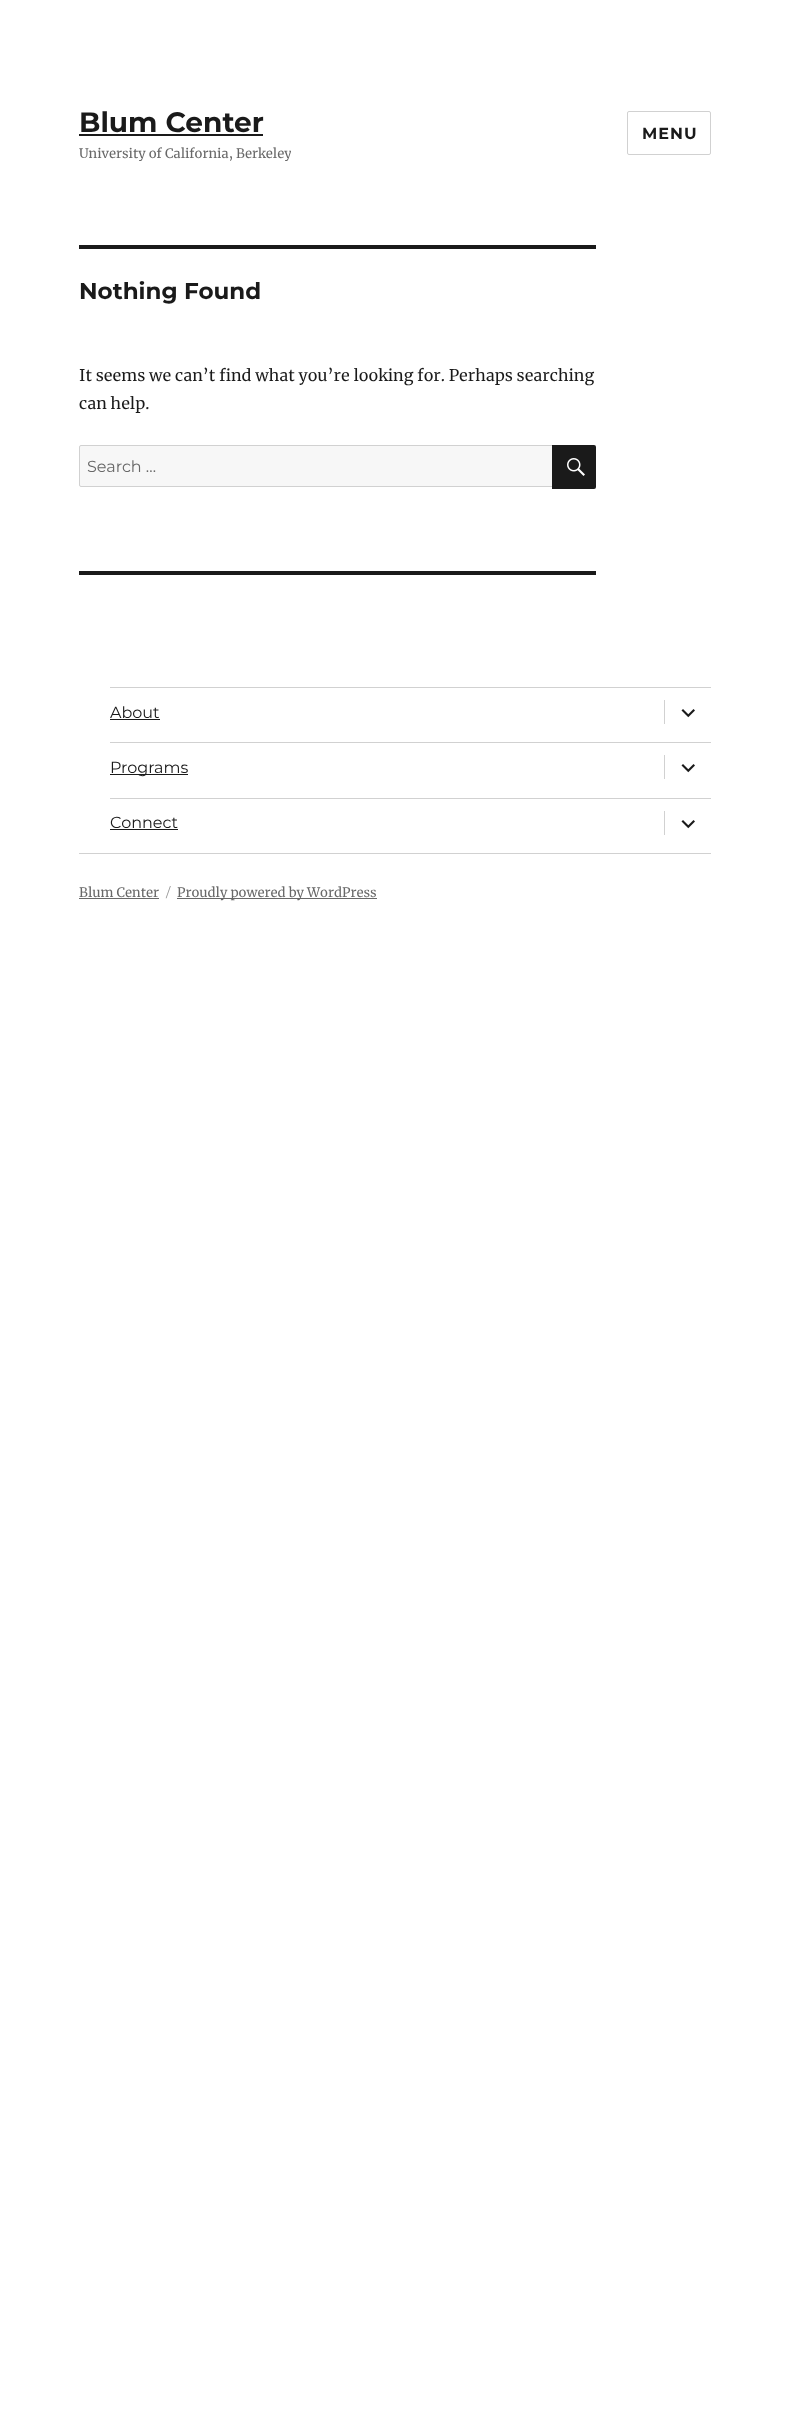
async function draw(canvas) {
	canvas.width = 790;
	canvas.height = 2410;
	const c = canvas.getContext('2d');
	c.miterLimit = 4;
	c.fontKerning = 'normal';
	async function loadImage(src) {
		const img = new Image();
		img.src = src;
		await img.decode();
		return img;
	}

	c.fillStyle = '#fff';
	c.fillRect(0, 0, 790, 2410);
	c.font = '100 28px Montserrat';
	c.fillStyle = '#1a1a1a';
	c.fillText('Blum Center', 79, 132);
	c.fillRect(79, 134, 184, 2);
	c.save();
	c.beginPath();
	c.rect(79, 105, 212, 56);
	c.clip();
	c.font = '13px Merriweather';
	c.fillStyle = '#686868';
	c.fillText('University of California, Berkeley', 79, 158);
	c.restore();
	c.beginPath();
	c.roundRect(627.5, 111.5, 83, 43, 1.5);
	c.strokeStyle = '#d1d1d1';
	c.stroke();
	c.letterSpacing = '1px';
	c.font = '100 16px Montserrat';
	c.fillText('MENU', 642, 139);
	c.fillRect(79, 245, 517, 4);
	c.letterSpacing = '0px';
	c.font = '100 23px Montserrat';
	c.fillText('Nothing Found', 79, 299);
	c.font = '16px Merriweather';
	c.fillText('It seems we can’t find what you’re looking for. Perhaps searching', 79, 381);
	c.fillText('can help.', 79, 409);
	c.fillStyle = '#f7f7f7';
	c.beginPath();
	c.roundRect(79.5, 445.5, 474, 41, [1.5, 0, 0, 1.5]);
	c.fill();
	c.stroke();
	c.font = '100 16px "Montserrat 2"';
	c.fillStyle = '#686868';
	c.fillText('Search …', 87, 472);
	c.fillStyle = '#1a1a1a';
	c.beginPath();
	c.roundRect(552, 445, 44, 44, [0, 2, 2, 0]);
	c.fill();
	c.drawImage(await loadImage('img1.png'), 567, 458, 18, 18);
	for (const [x, y, w, h, color] of [
		[79, 571, 517, 4, '#1a1a1a'],
		[79, 853, 632, 1, '#d1d1d1'],
		[110, 687, 601, 1, '#d1d1d1'],
	]) {
		c.fillStyle = color;
		c.fillRect(x, y, w, h);
	}
	c.fillStyle = '#1a1a1a';
	c.fillText('About', 110, 718);
	c.fillRect(110, 719, 50, 1);
	c.fillStyle = '#d1d1d1';
	c.fillRect(664, 700, 1, 24);
	c.drawImage(await loadImage('img2.png'), 681, 709, 14, 9);
	c.fillRect(110, 742, 601, 1);
	c.fillStyle = '#1a1a1a';
	c.fillRect(110, 774, 78, 1);
	c.fillText('Programs', 110, 773);
	c.fillStyle = '#d1d1d1';
	c.fillRect(664, 755, 1, 24);
	c.drawImage(await loadImage('img2.png'), 681, 764, 14, 9);
	c.fillRect(110, 798, 601, 1);
	c.fillStyle = '#1a1a1a';
	c.fillText('Connect', 110, 828);
	c.fillRect(110, 829, 68, 1);
	c.fillStyle = '#d1d1d1';
	c.fillRect(664, 811, 1, 24);
	c.drawImage(await loadImage('img2.png'), 681, 820, 14, 9);
	c.font = '13px Merriweather';
	c.fillStyle = '#686868';
	c.fillText('Blum Center', 79, 897);
	c.fillRect(79, 898, 80, 1);
	c.font = '100 13px "Montserrat 2"';
	c.fillStyle = '#959595';
	c.fillText('/', 166, 897);
	c.fillStyle = '#686868';
	c.fillRect(177, 898, 200, 1);
	c.font = '13px Merriweather';
	c.fillText('Proudly powered by WordPress', 177, 897);
}

draw(document.querySelector('canvas'));
